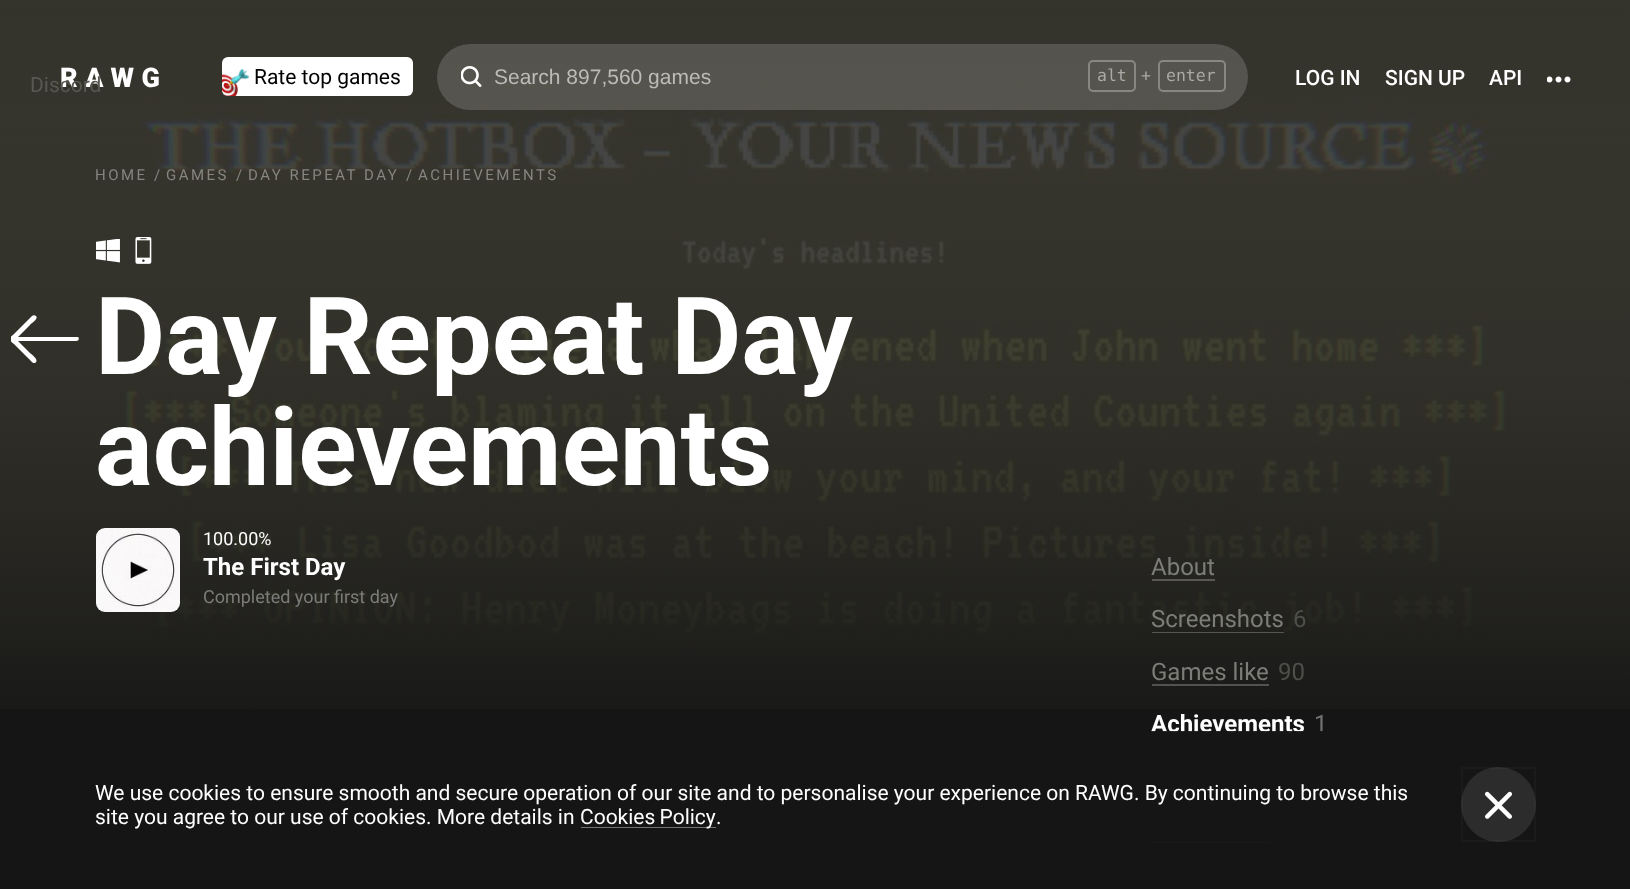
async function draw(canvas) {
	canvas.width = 1630;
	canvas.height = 889;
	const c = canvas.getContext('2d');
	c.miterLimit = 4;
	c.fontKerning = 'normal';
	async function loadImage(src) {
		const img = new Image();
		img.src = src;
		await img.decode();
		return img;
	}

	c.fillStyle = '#151515';
	c.fillRect(0, 0, 1630, 889);
	c.drawImage(await loadImage('img1.png'), 0, 0, 1630, 709);
	c.letterSpacing = '7.5px';
	c.font = '900 27px Roboto';
	c.fillStyle = '#fff';
	c.fillText('RAWG', 60, 87);
	c.fillStyle = '#ffffff29';
	c.beginPath();
	c.roundRect(437, 44, 811, 66, 33);
	c.fill();
	c.drawImage(await loadImage('img2.png'), 461, 66, 21, 21);
	c.letterSpacing = '0px';
	c.font = '21px Liberation Sans';
	c.fillStyle = '#bbbbb8';
	c.fillText('Search 897,560 games', 494, 84);
	c.beginPath();
	c.roundRect(1089, 61, 46, 30, 4);
	c.strokeStyle = '#888883';
	c.lineWidth = 2;
	c.stroke();
	c.font = '16.5px DejaVu Sans Mono';
	c.fillStyle = '#aaaaa6';
	c.fillText('alt', 1097, 81);
	c.fillText('+', 1141, 81);
	c.beginPath();
	c.roundRect(1159, 61, 66, 30, 4);
	c.stroke();
	c.fillText('enter', 1166, 81);
	c.font = '21px Roboto';
	c.fillStyle = '#585751';
	c.fillText('Discord', 30, 92);
	c.drawImage(await loadImage('img3.png'), 1547, 76, 24, 7);
	c.font = '500 21px Roboto';
	c.fillStyle = '#fff';
	for (const [text, x, y] of [
		['LOG IN', 1295, 85],
		['SIGN UP', 1385, 85],
		['API', 1489, 85],
	]) {
		c.fillText(text, x, y);
	}
	c.beginPath();
	c.roundRect(222, 57, 191, 39, 6);
	c.fill();
	c.drawImage(await loadImage('img4.png'), 222, 69, 27, 27);
	c.font = '21px Roboto';
	c.fillStyle = '#000';
	c.fillText('Rate top games', 254, 84);
	c.letterSpacing = '2.5px';
	c.font = '15px Roboto';
	c.fillStyle = '#868580';
	c.fillText('HOME', 95, 180);
	c.letterSpacing = '0px';
	c.fillText('/', 154, 180);
	c.letterSpacing = '2.5px';
	c.fillText('GAMES', 166, 180);
	c.letterSpacing = '0px';
	c.fillText('/', 236, 180);
	c.letterSpacing = '2.5px';
	c.fillText('DAY REPEAT DAY', 248, 180);
	c.letterSpacing = '0px';
	c.fillText('/', 406, 180);
	c.letterSpacing = '2.5px';
	c.fillText('ACHIEVEMENTS', 418, 180);
	c.drawImage(await loadImage('img5.png'), 96, 239, 24, 24);
	c.drawImage(await loadImage('img6.png'), 135, 237, 17, 27);
	c.save();
	c.beginPath();
	c.rect(11, 315, 69, 48);
	c.clip();
	c.fillStyle = '#fff';
	c.beginPath();
	c.moveTo(32, 316);
	c.bezierCurveTo(33, 315, 35, 315, 36, 316);
	c.bezierCurveTo(39, 319, 31, 323, 30, 325);
	c.lineTo(18, 337);
	c.lineTo(77, 337);
	c.lineTo(78, 337);
	c.bezierCurveTo(80, 339, 78, 341, 76, 341);
	c.lineTo(18, 341);
	c.lineTo(30, 353);
	c.bezierCurveTo(31, 354, 40, 360, 35, 363);
	c.bezierCurveTo(33, 364, 30, 360, 29, 359);
	c.lineTo(14, 344);
	c.bezierCurveTo(8, 339, 8, 339, 14, 334);
	c.closePath();
	c.fill();
	c.restore();
	c.letterSpacing = '0px';
	c.font = 'bold 108px Roboto';
	c.fillStyle = '#fff';
	c.fillText('Day Repeat Day', 95, 374);
	c.fillText('achievements', 95, 485);
	c.fillStyle = '#ffffff1a';
	c.beginPath();
	c.roundRect(96, 528, 84, 84, 9);
	c.fill();
	c.drawImage(await loadImage('img7.png'), 96, 528, 84, 84);
	c.font = '18px Roboto';
	c.fillStyle = '#fff';
	c.fillText('100.00%', 203, 545);
	c.font = 'bold 24px Roboto';
	c.fillText('The First Day', 203, 575);
	c.font = '18px Roboto';
	c.fillStyle = '#7c7c79';
	c.fillText('Completed your first day', 203, 603);
	c.fillStyle = '#595855';
	c.fillRect(1152, 579, 63, 2);
	c.font = '24px Roboto';
	c.fillStyle = '#7c7c79';
	c.fillText('About', 1151, 575);
	c.fillStyle = '#555553';
	c.fillRect(1152, 632, 132, 1);
	c.fillStyle = '#7c7c79';
	c.fillText('Screenshots', 1151, 627);
	c.fillStyle = '#4e4e4b';
	c.fillText('6', 1293, 627);
	c.fillStyle = '#525251';
	c.fillRect(1152, 684, 117, 2);
	c.fillStyle = '#7c7c79';
	c.fillText('Games like', 1151, 680);
	c.fillStyle = '#4e4e4b';
	c.fillText('90', 1278, 680);
	c.font = 'bold 24px Roboto';
	c.fillStyle = '#fff';
	c.fillText('Achievements', 1151, 732);
	c.font = '24px Roboto';
	c.fillStyle = '#737373';
	c.fillText('1', 1314, 732);
	for (const [x, y, w, h, color] of [
		[1152, 789, 87, 2, '#4d4d4d'],
		[1152, 842, 117, 1, '#4d4d4d'],
		[1151, 731, 172, 112, '#151515e6'],
	]) {
		c.fillStyle = color;
		c.fillRect(x, y, w, h);
	}
	c.font = '21px Roboto';
	c.fillStyle = '#fff';
	c.fillText('We use cookies to ensure smooth and secure operation of our site and to personalise your experience on RAWG. By continuing to browse this', 95, 800);
	c.fillText('site you agree to our use of cookies. More details in', 95, 824);
	c.fillStyle = '#737373';
	c.fillRect(581, 827, 135, 1);
	c.wordSpacing = '-1px';
	c.fillStyle = '#fff';
	c.fillText('Cookies Policy', 580, 824);
	c.wordSpacing = '0px';
	c.fillText('.', 716, 824);
	c.fillStyle = '#2c2c2c';
	c.beginPath();
	c.arc(1498.5, 804.5, 37.5, 0, 2 * Math.PI);
	c.fill();
	c.strokeStyle = '#9797970d';
	c.strokeRect(1462, 768, 73, 73);
	c.drawImage(await loadImage('img8.png'), 1485, 791, 27, 28);
}

draw(document.querySelector('canvas'));
